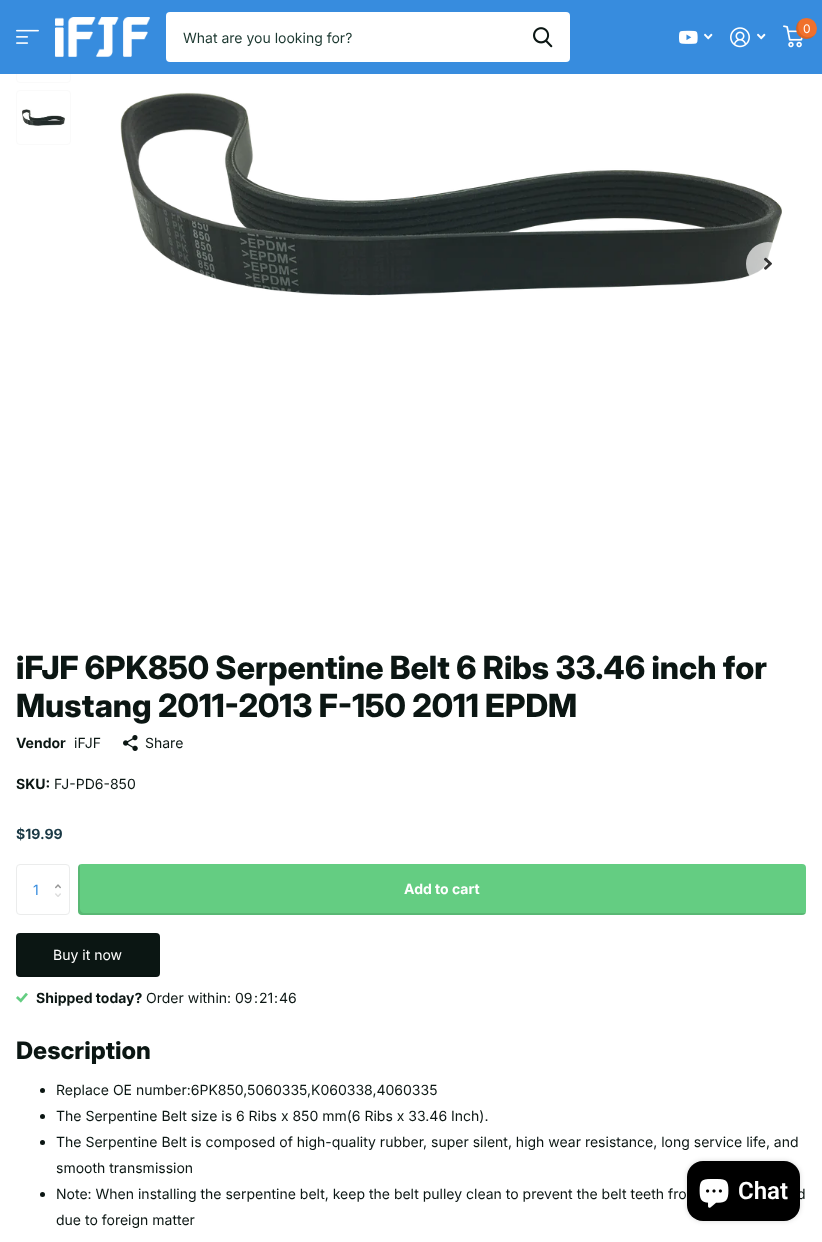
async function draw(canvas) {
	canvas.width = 822;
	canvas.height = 1242;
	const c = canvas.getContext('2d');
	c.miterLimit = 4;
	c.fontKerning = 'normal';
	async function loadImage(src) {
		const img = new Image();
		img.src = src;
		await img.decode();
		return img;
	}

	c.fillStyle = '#fff';
	c.fillRect(0, 0, 822, 1242);
	c.beginPath();
	c.roundRect(16.5, 28.5, 54, 54, 3.5);
	c.strokeStyle = '#fafafa';
	c.stroke();
	c.fillStyle = '#378cde';
	c.fillRect(0, 0, 822, 74);
	c.drawImage(await loadImage('img1.png'), 16, 29, 23, 15);
	c.drawImage(await loadImage('img2.png'), 55, 17, 95, 40);
	c.fillStyle = '#fff';
	c.beginPath();
	c.roundRect(166, 12, 404, 50, 4);
	c.fill();
	c.font = '14px Inter';
	c.fillStyle = '#1c3830';
	c.fillText('What are you looking for?', 183, 43);
	c.drawImage(await loadImage('img3.png'), 533, 27, 20, 21);
	c.drawImage(await loadImage('img4.png'), 679, 30, 19, 14);
	c.drawImage(await loadImage('img5.png'), 704, 33, 9, 7);
	c.drawImage(await loadImage('img6.png'), 730, 27, 20, 21);
	c.drawImage(await loadImage('img5.png'), 757, 33, 9, 7);
	c.drawImage(await loadImage('img7.png'), 783, 25, 20, 23);
	c.fillStyle = '#f0702c';
	c.beginPath();
	c.arc(806.5, 28.5, 10.5, 0, 2 * Math.PI);
	c.fill();
	c.fillStyle = '#0000001a';
	c.beginPath();
	c.moveTo(815, 34.5);
	c.bezierCurveTo(813.5, 36, 811, 37, 808, 37);
	c.bezierCurveTo(799, 37, 796, 26.5, 800, 20.5);
	c.bezierCurveTo(795, 24, 794.5, 31.5, 799, 36);
	c.bezierCurveTo(803.5, 40.5, 811.5, 40, 815, 34.5);
	c.closePath();
	c.fill();
	c.font = '12px Inter';
	c.fillStyle = '#fff';
	c.fillText('0', 803, 33);
	c.beginPath();
	c.roundRect(16.5, 90.5, 54, 54, 3.5);
	c.stroke();
	c.drawImage(await loadImage('img8.png'), 22, 109, 43, 17);
	c.drawImage(await loadImage('img10.png'), 120, 92, 662, 204);
	c.fillStyle = '#ffffffb3';
	c.beginPath();
	c.arc(768, 264, 22, 0, 2 * Math.PI);
	c.fill();
	c.drawImage(await loadImage('img9.png'), 764, 257, 8, 13);
	c.font = '800 32px Inter';
	c.fillStyle = '#0b1613';
	c.fillText('iFJF 6PK850 Serpentine Belt 6 Ribs 33.46 inch for', 16, 679);
	c.fillText('Mustang 2011-2013 F-150 2011 EPDM', 16, 717);
	c.font = 'bold 14px Inter';
	c.fillText('Vendor', 16, 748);
	c.font = '14px Inter';
	c.fillText('iFJF', 74, 748);
	c.drawImage(await loadImage('img11.png'), 123, 735, 15, 16);
	c.fillText('Share', 145, 748);
	c.font = 'bold 14px Inter';
	c.fillText('SKU:', 16, 789);
	c.font = '14px Inter';
	c.fillText('FJ-PD6-850', 54, 789);
	c.font = 'bold 14px Inter';
	c.fillStyle = '#1a3945';
	c.fillText('$19.99', 16, 839);
	c.beginPath();
	c.roundRect(16.5, 864.5, 53, 50, 3.5);
	c.strokeStyle = '#ebecec';
	c.stroke();
	c.font = '14px Inter';
	c.fillStyle = '#378cde';
	c.fillText('1', 33, 895);
	c.drawImage(await loadImage('img12.png'), 55, 884, 6, 5);
	c.drawImage(await loadImage('img13.png'), 55, 893, 6, 4);
	c.fillStyle = '#64cd82';
	c.beginPath();
	c.roundRect(78, 864, 728, 51, 4);
	c.fill();
	c.fillStyle = '#0000001a';
	c.beginPath();
	c.moveTo(80, 864);
	c.bezierCurveTo(79, 865, 78, 866, 78, 868);
	c.lineTo(78, 911);
	c.bezierCurveTo(78, 913, 80, 915, 82, 915);
	c.lineTo(802, 915);
	c.bezierCurveTo(804, 915, 805, 914, 806, 913);
	c.lineTo(804, 913);
	c.lineTo(84, 913);
	c.bezierCurveTo(82, 913, 80, 911, 80, 909);
	c.lineTo(80, 866);
	c.closePath();
	c.fill();
	c.font = 'bold 14px Inter';
	c.fillStyle = '#fff';
	c.fillText('Add to cart', 404, 894);
	c.fillStyle = '#0b1613';
	c.beginPath();
	c.roundRect(16, 933, 144, 44, 4);
	c.fill();
	c.fillStyle = '#0000001a';
	c.beginPath();
	c.moveTo(18, 933);
	c.bezierCurveTo(17, 934, 16, 935, 16, 937);
	c.lineTo(16, 973);
	c.bezierCurveTo(16, 975, 18, 977, 20, 977);
	c.lineTo(156, 977);
	c.bezierCurveTo(158, 977, 159, 976, 160, 975);
	c.lineTo(158, 975);
	c.lineTo(22, 975);
	c.bezierCurveTo(20, 975, 18, 973, 18, 971);
	c.lineTo(18, 935);
	c.closePath();
	c.fill();
	c.font = '14px Inter';
	c.fillStyle = '#fff';
	c.fillText('Buy it now', 53, 960);
	c.drawImage(await loadImage('img14.png'), 16, 992, 12, 11);
	c.font = 'bold 14px Inter';
	c.fillStyle = '#0b1613';
	c.fillText('Shipped today?', 36, 1003);
	c.font = '14px Inter';
	for (const [text, x, y] of [
		['Order within: 09', 146, 1003],
		[':', 254, 1003],
		['21', 259, 1003],
		[':', 274, 1003],
		['46', 279, 1003],
	]) {
		c.fillText(text, x, y);
	}
	c.font = '800 24px "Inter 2"';
	c.fillText('Description', 16, 1059);
	c.beginPath();
	c.arc(42.5, 1090.5, 2.5, 0, 2 * Math.PI);
	c.fill();
	c.font = '14px Inter';
	c.fillText('Replace OE number:6PK850,5060335,K060338,4060335', 56, 1095);
	c.beginPath();
	c.arc(42.5, 1116.5, 2.5, 0, 2 * Math.PI);
	c.fill();
	c.fillText('The Serpentine Belt size is 6 Ribs x 850 mm(6 Ribs x 33.46 Inch).', 56, 1121);
	c.beginPath();
	c.arc(42.5, 1142.5, 2.5, 0, 2 * Math.PI);
	c.fill();
	c.fillText('The Serpentine Belt is composed of high-quality rubber, super silent, high wear resistance, long service life, and', 56, 1147);
	c.fillText('smooth transmission', 56, 1173);
	c.beginPath();
	c.arc(42.5, 1194.5, 2.5, 0, 2 * Math.PI);
	c.fill();
	for (const [text, x, y] of [
		['Note: When installing the serpentine belt, keep the belt pulley clean to prevent the belt teeth fro', 56, 1199],
		['d', 797, 1199],
		['due to foreign matter', 56, 1225],
	]) {
		c.fillText(text, x, y);
	}
	c.fillStyle = '#00000026';
	c.filter = 'blur(2.5px)';
	c.beginPath();
	c.roundRect(687, 1161, 113, 60, 16);
	c.fill();
	c.filter = 'none';
	c.fillStyle = '#000';
	c.beginPath();
	c.roundRect(687, 1161, 113, 60, 16);
	c.fill();
	c.drawImage(await loadImage('img15.png'), 699, 1179, 30, 29);
	c.font = '600 24px Roboto';
	c.fillStyle = '#fff';
	c.fillText('Chat', 738, 1199);
}

draw(document.querySelector('canvas'));
